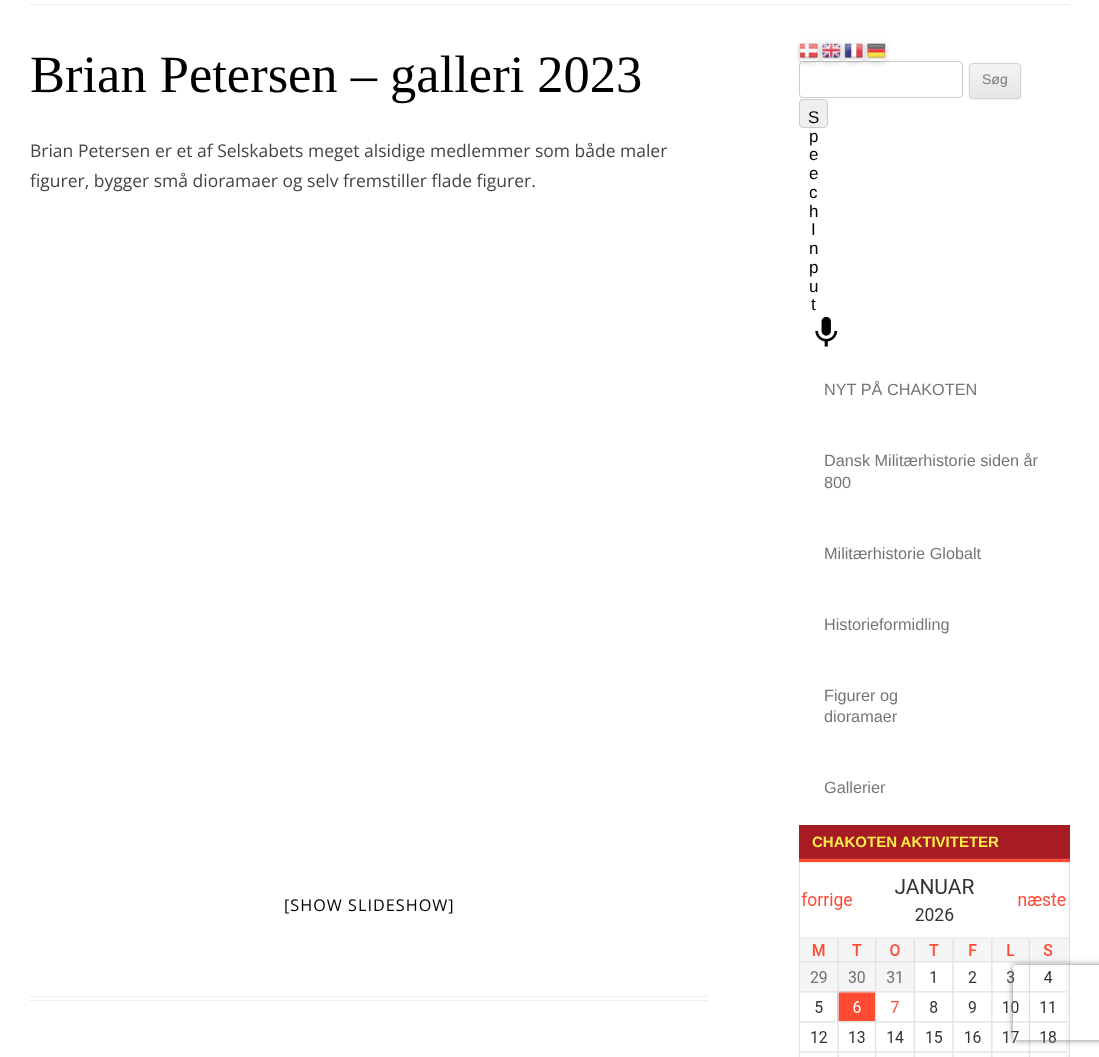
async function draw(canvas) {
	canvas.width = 1099;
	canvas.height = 1057;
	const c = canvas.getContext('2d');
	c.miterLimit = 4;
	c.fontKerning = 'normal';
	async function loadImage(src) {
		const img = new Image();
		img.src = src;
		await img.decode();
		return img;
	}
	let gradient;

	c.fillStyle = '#fff';
	c.fillRect(0, 0, 1099, 1057);
	for (const [x, y, w, h, color] of [
		[30, 4, 1040, 1, '#ededed'],
		[30, 996, 678, 1, '#ededed'],
		[30, 1000, 678, 1, '#ededed'],
	]) {
		c.fillStyle = color;
		c.fillRect(x, y, w, h);
	}
	c.font = '52.5px Liberation Serif';
	c.fillStyle = '#000';
	c.fillText('Brian Petersen – galleri 2023', 30, 92);
	c.font = '17.5px Open Sans';
	c.fillStyle = '#444';
	c.fillText('Brian Petersen er et af Selskabets meget alsidige medlemmer som både maler', 30, 157);
	c.fillText('figurer, bygger små dioramaer og selv fremstiller flade figurer.', 30, 187);
	c.letterSpacing = '1px';
	c.font = '16.25px Open Sans';
	c.fillStyle = '#000';
	c.fillText('[SHOW SLIDESHOW]', 284, 911);
	c.beginPath();
	c.roundRect(799.5, 61.5, 163, 36, 3.5);
	c.strokeStyle = '#ccc';
	c.stroke();
	c.save();
	c.beginPath();
	c.moveTo(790, 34);
	c.lineTo(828, 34);
	c.lineTo(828, 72);
	c.lineTo(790, 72);
	c.closePath();
	c.moveTo(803, 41);
	c.lineTo(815, 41);
	c.bezierCurveTo(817, 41, 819, 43, 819, 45);
	c.lineTo(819, 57);
	c.bezierCurveTo(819, 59, 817, 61, 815, 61);
	c.lineTo(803, 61);
	c.bezierCurveTo(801, 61, 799, 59, 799, 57);
	c.lineTo(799, 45);
	c.bezierCurveTo(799, 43, 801, 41, 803, 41);
	c.closePath();
	c.clip('evenodd');
	c.fillStyle = '#00000029';
	c.filter = 'blur(2.5px)';
	c.beginPath();
	c.roundRect(799, 43, 20, 20, 4);
	c.fill();
	c.filter = 'none';
	c.restore();
	c.drawImage(await loadImage('img1.png'), 799, 42, 20, 18);
	c.save();
	c.beginPath();
	c.moveTo(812, 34);
	c.lineTo(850, 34);
	c.lineTo(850, 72);
	c.lineTo(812, 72);
	c.closePath();
	c.moveTo(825, 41);
	c.lineTo(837, 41);
	c.bezierCurveTo(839, 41, 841, 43, 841, 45);
	c.lineTo(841, 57);
	c.bezierCurveTo(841, 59, 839, 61, 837, 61);
	c.lineTo(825, 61);
	c.bezierCurveTo(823, 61, 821, 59, 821, 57);
	c.lineTo(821, 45);
	c.bezierCurveTo(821, 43, 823, 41, 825, 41);
	c.closePath();
	c.clip('evenodd');
	c.fillStyle = '#00000029';
	c.filter = 'blur(2.5px)';
	c.beginPath();
	c.roundRect(821, 43, 20, 20, 4);
	c.fill();
	c.filter = 'none';
	c.restore();
	c.drawImage(await loadImage('img2.png'), 821, 42, 20, 18);
	c.save();
	c.beginPath();
	c.moveTo(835, 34);
	c.lineTo(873, 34);
	c.lineTo(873, 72);
	c.lineTo(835, 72);
	c.closePath();
	c.moveTo(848, 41);
	c.lineTo(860, 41);
	c.bezierCurveTo(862, 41, 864, 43, 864, 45);
	c.lineTo(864, 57);
	c.bezierCurveTo(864, 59, 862, 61, 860, 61);
	c.lineTo(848, 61);
	c.bezierCurveTo(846, 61, 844, 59, 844, 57);
	c.lineTo(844, 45);
	c.bezierCurveTo(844, 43, 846, 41, 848, 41);
	c.closePath();
	c.clip('evenodd');
	c.fillStyle = '#00000029';
	c.filter = 'blur(2.5px)';
	c.beginPath();
	c.roundRect(844, 43, 20, 20, 4);
	c.fill();
	c.filter = 'none';
	c.restore();
	c.drawImage(await loadImage('img3.png'), 844, 42, 20, 18);
	c.save();
	c.beginPath();
	c.moveTo(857, 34);
	c.lineTo(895, 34);
	c.lineTo(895, 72);
	c.lineTo(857, 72);
	c.closePath();
	c.moveTo(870, 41);
	c.lineTo(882, 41);
	c.bezierCurveTo(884, 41, 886, 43, 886, 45);
	c.lineTo(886, 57);
	c.bezierCurveTo(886, 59, 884, 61, 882, 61);
	c.lineTo(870, 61);
	c.bezierCurveTo(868, 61, 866, 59, 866, 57);
	c.lineTo(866, 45);
	c.bezierCurveTo(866, 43, 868, 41, 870, 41);
	c.closePath();
	c.clip('evenodd');
	c.fillStyle = '#00000029';
	c.filter = 'blur(2.5px)';
	c.beginPath();
	c.roundRect(866, 43, 20, 20, 4);
	c.fill();
	c.filter = 'none';
	c.restore();
	c.drawImage(await loadImage('img4.png'), 866, 42, 20, 18);
	c.fillStyle = '#4040401a';
	c.filter = 'blur(1px)';
	c.beginPath();
	c.roundRect(969, 64, 52, 36, 4);
	c.fill();
	c.filter = 'none';
	c.save();
	c.beginPath();
	c.roundRect(969, 63, 52, 36, 4);
	c.clip();
	gradient = c.createLinearGradient(995, 64, 995, 98);
	gradient.addColorStop(0, '#f4f4f4');
	gradient.addColorStop(1, '#e6e6e6');
	c.fillStyle = gradient;
	c.fillRect(969, 64, 52, 34);
	c.restore();
	c.beginPath();
	c.roundRect(969.5, 63.5, 51, 35, 3.5);
	c.strokeStyle = '#d2d2d2';
	c.stroke();
	c.letterSpacing = '0px';
	c.font = '14px Liberation Sans';
	c.fillStyle = '#7c7c7c';
	c.fillText('Søg', 982, 84);
	c.fillStyle = '#efefef';
	c.beginPath();
	c.roundRect(799.5, 99.5, 28, 28, 3.5);
	c.fill();
	c.strokeStyle = '#ccc';
	c.stroke();
	c.font = '17px Liberation Sans';
	c.fillStyle = '#000';
	for (const [text, x, y] of [
		['S', 808, 123],
		['p', 809, 142],
		['e', 809, 160],
		['e', 809, 179],
		['c', 809, 198],
		['h', 809, 217],
		['I', 811, 235],
		['n', 809, 254],
		['p', 809, 273],
		['u', 809, 292],
		['t', 811, 310],
	]) {
		c.fillText(text, x, y);
	}
	c.drawImage(await loadImage('img5.png'), 815, 316, 23, 31);
	c.font = '16.25px Liberation Sans';
	c.fillStyle = '#757575';
	for (const [text, x, y] of [
		['NYT PÅ CHAKOTEN', 824, 395],
		['Dansk Militærhistorie siden år', 824, 466],
		['800', 824, 488],
		['Militærhistorie Globalt', 824, 559],
		['Historieformidling', 824, 630],
		['Figurer og', 824, 701],
		['dioramaer', 824, 722],
		['Gallerier', 824, 793],
	]) {
		c.fillText(text, x, y);
	}
	c.fillStyle = '#a61c22';
	c.fillRect(799, 825, 271, 34);
	c.font = 'bold 15px Liberation Sans';
	c.fillStyle = '#ffee49';
	c.fillText('CHAKOTEN AKTIVITETER', 812, 847);
	c.drawImage(await loadImage('img6.png'), 798, 858, 272, 199);
	c.save();
	c.beginPath();
	c.moveTo(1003, 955);
	c.lineTo(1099, 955);
	c.lineTo(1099, 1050);
	c.lineTo(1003, 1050);
	c.closePath();
	c.moveTo(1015.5, 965);
	c.lineTo(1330.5, 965);
	c.bezierCurveTo(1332, 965, 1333, 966, 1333, 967.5);
	c.lineTo(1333, 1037.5);
	c.bezierCurveTo(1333, 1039, 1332, 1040, 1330.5, 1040);
	c.lineTo(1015.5, 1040);
	c.bezierCurveTo(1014, 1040, 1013, 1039, 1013, 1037.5);
	c.lineTo(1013, 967.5);
	c.bezierCurveTo(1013, 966, 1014, 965, 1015.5, 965);
	c.closePath();
	c.clip('evenodd');
	c.fillStyle = '#808080';
	c.filter = 'blur(3px)';
	c.beginPath();
	c.roundRect(1013, 965, 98, 75, 2.5);
	c.fill();
	c.filter = 'none';
	c.restore();
}

draw(document.querySelector('canvas'));
